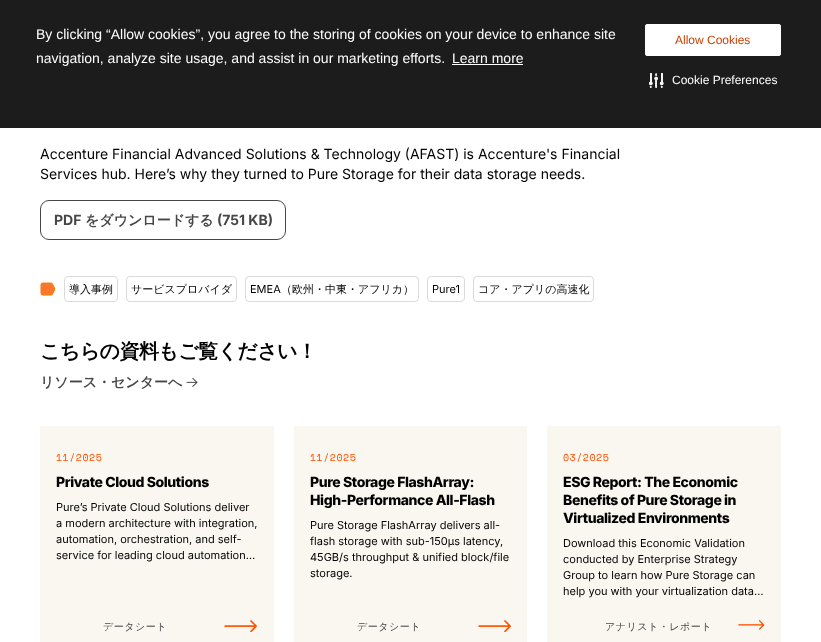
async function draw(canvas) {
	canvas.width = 821;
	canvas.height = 642;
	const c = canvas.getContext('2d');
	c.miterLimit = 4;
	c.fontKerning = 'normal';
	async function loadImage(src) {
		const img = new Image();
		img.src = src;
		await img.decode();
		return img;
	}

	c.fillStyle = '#fff';
	c.fillRect(0, 0, 821, 642);
	c.fillStyle = '#1c1c1c';
	c.fillRect(0, 0, 821, 128);
	c.font = '14px Liberation Sans';
	c.fillStyle = '#fff';
	for (const [text, x, y] of [
		['By clicking “Allow cookies”, you agree to the storing of cookies on your device to enhance site', 36, 39],
		['navigation, analyze site usage, and assist in our marketing efforts.', 36, 63],
		['Learn more', 452, 63],
	]) {
		c.fillText(text, x, y);
	}
	c.fillRect(452, 64, 71, 1);
	c.beginPath();
	c.roundRect(645.5, 24.5, 135, 31, 1.5);
	c.fill();
	c.strokeStyle = '#fff';
	c.stroke();
	c.font = '12px Liberation Sans';
	c.fillStyle = '#cc4000';
	c.fillText('Allow Cookies', 675, 44);
	c.drawImage(await loadImage('img1.png'), 649, 73, 15, 15);
	c.fillStyle = '#fff';
	c.fillText('Cookie Preferences', 672, 84);
	c.font = '14px Inter';
	c.fillStyle = '#000';
	c.fillText('Accenture Financial Advanced Solutions & Technology (AFAST) is Accenture\'s Financial', 40, 159);
	c.fillText('Services hub. Here’s why they turned to Pure Storage for their data storage needs.', 40, 179);
	c.beginPath();
	c.roundRect(40.5, 200.5, 245, 39, 8.5);
	c.strokeStyle = '#474747';
	c.stroke();
	c.font = 'bold 14px Inter';
	c.fillStyle = '#474747';
	c.fillText('PDF', 54, 225);
	c.font = 'bold 14px WenQuanYi Zen Hei';
	c.fillText('をダウンロードする', 85, 225);
	c.font = 'bold 14px Inter';
	c.fillText('(751 KB)', 217, 225);
	c.drawImage(await loadImage('img2.png'), 40, 282, 16, 14);
	c.beginPath();
	c.roundRect(64.5, 276.5, 53, 25, 3.5);
	c.strokeStyle = '#dadada';
	c.stroke();
	c.font = '500 11px WenQuanYi Zen Hei';
	c.fillStyle = '#000';
	c.fillText('導入事例', 69, 293);
	c.beginPath();
	c.roundRect(126.5, 276.5, 110, 25, 3.5);
	c.stroke();
	c.fillText('サービスプロバイダ', 131, 293);
	c.beginPath();
	c.roundRect(245.5, 276.5, 173, 25, 3.5);
	c.stroke();
	c.font = '11px Inter';
	c.fillText('EMEA', 250, 293);
	c.font = '500 11px WenQuanYi Zen Hei';
	c.fillText('（欧州・中東・アフリカ）', 281, 293);
	c.beginPath();
	c.roundRect(427.5, 276.5, 37, 25, 3.5);
	c.stroke();
	c.font = '11px Inter';
	c.fillText('Pure1', 432, 293);
	c.beginPath();
	c.roundRect(473.5, 276.5, 120, 25, 3.5);
	c.stroke();
	c.font = '500 11px WenQuanYi Zen Hei';
	c.fillText('コア・アプリの高速化', 478, 293);
	c.letterSpacing = '-0.6px';
	c.font = 'bold 20px WenQuanYi Zen Hei';
	c.fillText('こちらの資料もご覧ください！', 40, 358);
	c.letterSpacing = '0px';
	c.font = 'bold 14px WenQuanYi Zen Hei';
	c.fillStyle = '#474747';
	c.fillText('リソース・センターへ', 40, 387);
	c.drawImage(await loadImage('img3.png'), 186, 377, 12, 10);
	c.fillStyle = '#faf7f1';
	c.fillRect(40, 426, 234, 216);
	c.letterSpacing = '0.5px';
	c.font = '10px Space Mono';
	c.fillStyle = '#fe5000';
	c.fillText('11/2025', 56, 461);
	c.letterSpacing = '-0.4px';
	c.font = '800 14px Inter';
	c.fillStyle = '#000';
	c.fillText('Private Cloud Solutions', 56, 487);
	c.letterSpacing = '0px';
	c.font = '11px Inter';
	for (const [text, x, y] of [
		['Pure’s Private Cloud Solutions deliver', 56, 511],
		['a modern architecture with integration,', 56, 527],
		['automation, orchestration, and self-', 56, 543],
		['service for leading cloud automation…', 56, 559],
	]) {
		c.fillText(text, x, y);
	}
	c.letterSpacing = '0.5px';
	c.font = '500 10px WenQuanYi Zen Hei';
	c.fillStyle = '#474747';
	c.fillText('データシート', 103, 630);
	c.drawImage(await loadImage('img4.png'), 224, 620, 33, 12);
	c.fillStyle = '#faf7f1';
	c.fillRect(294, 426, 233, 216);
	c.font = '10px Space Mono';
	c.fillStyle = '#fe5000';
	c.fillText('11/2025', 310, 461);
	c.letterSpacing = '-0.4px';
	c.font = '800 14px Inter';
	c.fillStyle = '#000';
	c.fillText('Pure Storage FlashArray:', 310, 487);
	c.fillText('High-Performance All-Flash', 310, 505);
	c.letterSpacing = '0px';
	c.font = '11px Inter';
	for (const [text, x, y] of [
		['Pure Storage FlashArray delivers all-', 310, 529],
		['flash storage with sub-150µs latency,', 310, 545],
		['45GB/s throughput & unified block/file', 310, 561],
		['storage.', 310, 577],
	]) {
		c.fillText(text, x, y);
	}
	c.letterSpacing = '0.5px';
	c.font = '500 10px WenQuanYi Zen Hei';
	c.fillStyle = '#474747';
	c.fillText('データシート', 357, 630);
	c.drawImage(await loadImage('img4.png'), 478, 620, 33, 12);
	c.fillStyle = '#faf7f1';
	c.fillRect(547, 426, 234, 216);
	c.font = '10px Space Mono';
	c.fillStyle = '#fe5000';
	c.fillText('03/2025', 563, 461);
	c.letterSpacing = '-0.4px';
	c.font = '800 14px Inter';
	c.fillStyle = '#000';
	for (const [text, x, y] of [
		['ESG Report: The Economic', 563, 487],
		['Benefits of Pure Storage in', 563, 505],
		['Virtualized Environments', 563, 523],
	]) {
		c.fillText(text, x, y);
	}
	c.letterSpacing = '0px';
	c.font = '11px Inter';
	for (const [text, x, y] of [
		['Download this Economic Validation', 563, 547],
		['conducted by Enterprise Strategy', 563, 563],
		['Group to learn how Pure Storage can', 563, 579],
		['help you with your virtualization data…', 563, 595],
	]) {
		c.fillText(text, x, y);
	}
	c.letterSpacing = '0.5px';
	c.font = '500 10px WenQuanYi Zen Hei';
	c.fillStyle = '#474747';
	c.fillText('アナリスト・レポート', 605, 630);
	c.drawImage(await loadImage('img5.png'), 738, 620, 27, 10);
}

draw(document.querySelector('canvas'));
